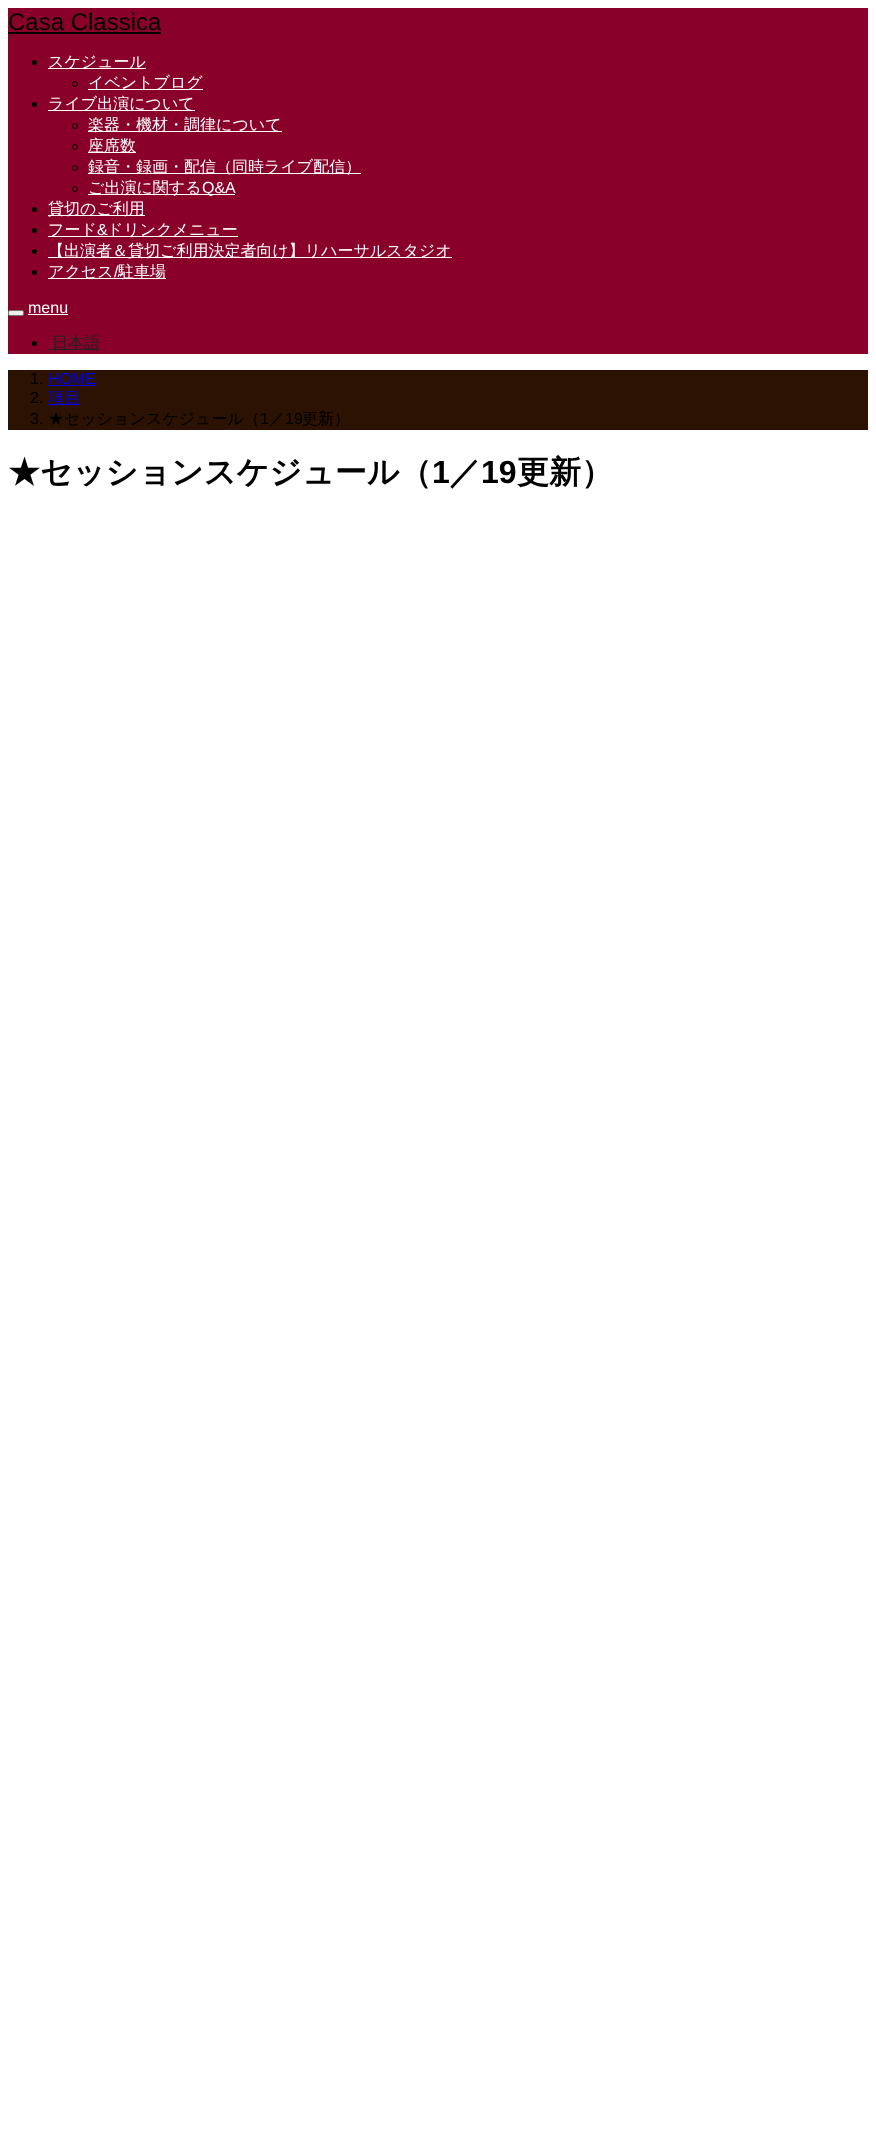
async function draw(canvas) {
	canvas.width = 876;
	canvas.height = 2133;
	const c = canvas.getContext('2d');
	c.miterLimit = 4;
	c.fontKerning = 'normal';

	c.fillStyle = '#fff';
	c.fillRect(0, 0, 876, 2133);
	c.fillStyle = '#89012a';
	c.fillRect(8, 8, 860, 346);
	c.font = '24px Liberation Sans';
	c.fillStyle = '#000';
	c.fillText('Casa Classica', 8, 30);
	c.fillRect(8, 32, 153, 2);
	c.beginPath();
	c.arc(34.5, 62.5, 2.5, 0, 2 * Math.PI);
	c.fill();
	c.fillStyle = '#fff';
	c.fillRect(48, 68, 98, 1);
	c.font = '500 16px WenQuanYi Zen Hei';
	c.fillText('スケジュール', 48, 67);
	c.beginPath();
	c.arc(75, 84, 2.5, 0, 2 * Math.PI);
	c.strokeStyle = '#000';
	c.stroke();
	c.fillRect(88, 89, 115, 1);
	c.fillText('イベントブログ', 88, 88);
	c.fillStyle = '#000';
	c.beginPath();
	c.arc(34.5, 104.5, 2.5, 0, 2 * Math.PI);
	c.fill();
	c.fillStyle = '#fff';
	c.fillRect(48, 110, 147, 1);
	c.fillText('ライブ出演について', 48, 109);
	c.beginPath();
	c.arc(75, 126, 2.5, 0, 2 * Math.PI);
	c.stroke();
	c.fillRect(88, 131, 194, 1);
	c.fillText('楽器・機材・調律について', 88, 130);
	c.beginPath();
	c.arc(75, 147, 2.5, 0, 2 * Math.PI);
	c.stroke();
	c.fillRect(88, 152, 48, 1);
	c.fillText('座席数', 88, 151);
	c.beginPath();
	c.arc(75, 168, 2.5, 0, 2 * Math.PI);
	c.stroke();
	c.fillRect(88, 173, 273, 1);
	c.fillText('録音・録画・配信（同時ライブ配信）', 88, 172);
	c.beginPath();
	c.arc(75, 189, 2.5, 0, 2 * Math.PI);
	c.stroke();
	c.fillRect(88, 194, 147, 1);
	c.fillText('ご出演に関する', 88, 193);
	c.font = '16px Liberation Sans';
	c.fillText('Q&A', 202, 193);
	c.fillStyle = '#000';
	c.beginPath();
	c.arc(34.5, 209.5, 2.5, 0, 2 * Math.PI);
	c.fill();
	c.fillStyle = '#fff';
	c.fillRect(48, 215, 97, 1);
	c.font = '500 16px WenQuanYi Zen Hei';
	c.fillText('貸切のご利用', 48, 214);
	c.fillStyle = '#000';
	c.beginPath();
	c.arc(34.5, 230.5, 2.5, 0, 2 * Math.PI);
	c.fill();
	c.fillStyle = '#fff';
	c.fillRect(48, 236, 190, 1);
	c.fillText('フード', 48, 235);
	c.font = '16px Liberation Sans';
	c.fillText('&', 97, 235);
	c.font = '500 16px WenQuanYi Zen Hei';
	c.fillText('ドリンクメニュー', 107, 235);
	c.fillStyle = '#000';
	c.beginPath();
	c.arc(34.5, 251.5, 2.5, 0, 2 * Math.PI);
	c.fill();
	c.fillStyle = '#fff';
	c.fillRect(48, 257, 404, 1);
	c.fillText('【出演者＆貸切ご利用決定者向け】リハーサルスタジオ', 48, 256);
	c.fillStyle = '#000';
	c.beginPath();
	c.arc(34.5, 272.5, 2.5, 0, 2 * Math.PI);
	c.fill();
	c.fillStyle = '#fff';
	c.fillRect(48, 278, 118, 1);
	c.fillText('アクセス', 48, 277);
	c.font = '16px Liberation Sans';
	c.fillText('/', 114, 277);
	c.font = '500 16px WenQuanYi Zen Hei';
	c.fillText('駐車場', 118, 277);
	c.fillStyle = '#efefef';
	c.beginPath();
	c.roundRect(8.5, 310.5, 15, 5, 1.5);
	c.fill();
	c.strokeStyle = '#767676';
	c.stroke();
	c.font = '16px Liberation Sans';
	c.fillStyle = '#fff';
	c.fillText('menu', 28, 313);
	c.fillRect(28, 314, 40, 1);
	c.fillStyle = '#000';
	c.beginPath();
	c.arc(34.5, 343.5, 2.5, 0, 2 * Math.PI);
	c.fill();
	c.fillStyle = '#222';
	c.fillRect(48, 349, 52, 1);
	c.font = '500 16px WenQuanYi Zen Hei';
	c.fillText('日本語', 52, 348);
	c.fillStyle = '#2b1202';
	c.fillRect(8, 370, 860, 60);
	c.font = '16px Liberation Sans';
	c.fillStyle = '#000';
	c.fillText('1.', 30, 384);
	c.fillStyle = '#00e';
	c.fillText('HOME', 48, 384);
	c.fillRect(48, 385, 48, 1);
	c.fillStyle = '#000';
	c.fillText('2.', 30, 403);
	c.fillStyle = '#00e';
	c.fillRect(48, 404, 32, 1);
	c.font = '500 16px WenQuanYi Zen Hei';
	c.fillText('項目', 48, 403);
	c.font = '16px Liberation Sans';
	c.fillStyle = '#000';
	c.fillText('3.', 30, 424);
	c.font = '500 16px WenQuanYi Zen Hei';
	c.fillText('★セッションスケジュール（', 48, 424);
	c.font = '16px Liberation Sans';
	c.fillText('1', 260, 424);
	c.font = '500 16px WenQuanYi Zen Hei';
	c.fillText('／', 269, 424);
	c.font = '16px Liberation Sans';
	c.fillText('19', 285, 424);
	c.font = '500 16px WenQuanYi Zen Hei';
	c.fillText('更新）', 302, 424);
	c.font = 'bold 32px WenQuanYi Zen Hei';
	c.fillText('★セッションスケジュール（', 8, 483);
	c.font = 'bold 32px Liberation Sans';
	c.fillText('1', 432, 483);
	c.font = 'bold 32px WenQuanYi Zen Hei';
	c.fillText('／', 449, 483);
	c.font = 'bold 32px Liberation Sans';
	c.fillText('19', 481, 483);
	c.font = 'bold 32px WenQuanYi Zen Hei';
	c.fillText('更新）', 517, 483);
}

draw(document.querySelector('canvas'));
